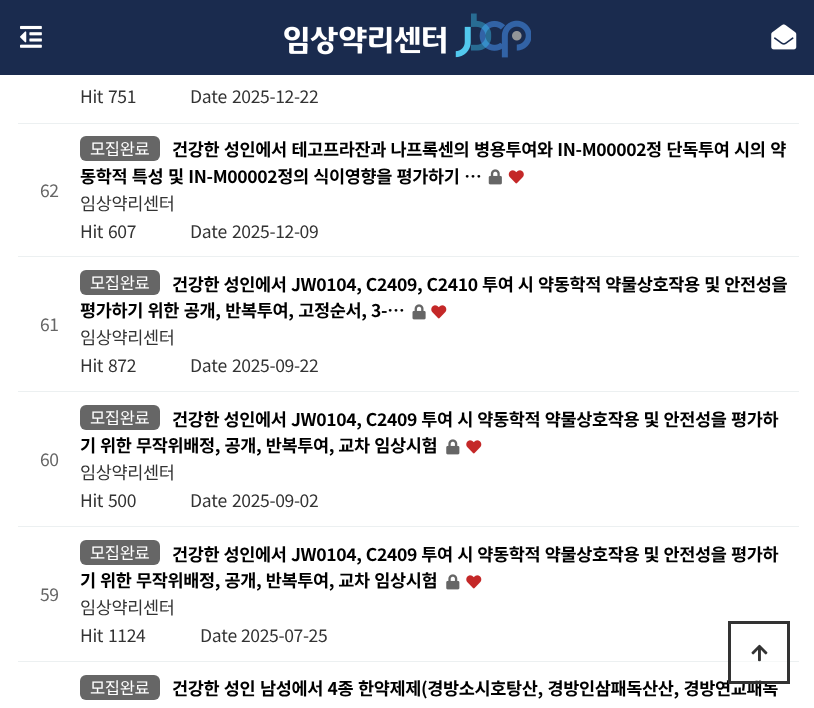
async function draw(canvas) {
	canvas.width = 814;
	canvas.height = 708;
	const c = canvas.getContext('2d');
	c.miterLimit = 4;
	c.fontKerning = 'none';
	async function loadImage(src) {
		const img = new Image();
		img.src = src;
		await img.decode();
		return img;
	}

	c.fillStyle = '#fff';
	c.fillRect(0, 0, 814, 708);
	c.fillStyle = '#1a2b4e';
	c.fillRect(0, 0, 814, 75);
	c.drawImage(await loadImage('img1.png'), 284, 13, 247, 45);
	c.drawImage(await loadImage('img2.png'), 20, 25, 22, 23);
	c.drawImage(await loadImage('img3.png'), 771, 24, 26, 26);
	c.letterSpacing = '-0.35px';
	c.font = '17.5px Noto Sans KR';
	c.fillStyle = '#333';
	for (const [text, x, y] of [
		['Hit', 80, 103],
		['751', 108, 103],
		['Date', 190, 103],
		['2025-12-22', 232, 103],
	]) {
		c.fillText(text, x, y);
	}
	c.fillStyle = '#666';
	c.fillText('62', 40, 197);
	c.fillStyle = '#ecf0f1';
	c.fillRect(18, 123, 781, 1);
	c.wordSpacing = '1px';
	c.font = 'bold 17.5px Noto Sans KR';
	c.fillStyle = '#000';
	c.fillText('건강한 성인에서 테고프라잔과 나프록센의 병용투여와 IN-M00002정 단독투여 시의 약', 172, 156);
	c.fillText('동학적 특성 및 IN-M00002정의 식이영향을 평가하기 …', 80, 183);
	c.drawImage(await loadImage('img4.png'), 488, 169, 14, 16);
	c.drawImage(await loadImage('img5.png'), 508, 170, 16, 14);
	c.fillStyle = '#666';
	c.beginPath();
	c.roundRect(80, 136, 80, 25, 6);
	c.fill();
	c.wordSpacing = '0px';
	c.font = '16.5px Noto Sans KR';
	c.fillStyle = '#fff';
	c.fillText('모집완료', 90, 155);
	c.font = '17.5px Noto Sans KR';
	c.fillStyle = '#333';
	for (const [text, x, y] of [
		['임상약리센터', 80, 210],
		['Hit', 80, 238],
		['607', 108, 238],
		['Date', 190, 238],
		['2025-12-09', 232, 238],
	]) {
		c.fillText(text, x, y);
	}
	c.fillStyle = '#666';
	c.fillText('61', 40, 331);
	c.fillStyle = '#ecf0f1';
	c.fillRect(18, 256, 781, 1);
	c.fillStyle = '#666';
	c.beginPath();
	c.roundRect(80, 270, 80, 25, 6);
	c.fill();
	c.font = '16.5px Noto Sans KR';
	c.fillStyle = '#fff';
	c.fillText('모집완료', 90, 289);
	c.wordSpacing = '0.75px';
	c.font = 'bold 17.5px Noto Sans KR';
	c.fillStyle = '#000';
	c.fillText('건강한 성인에서 JW0104, C2409, C2410 투여 시 약동학적 약물상호작용 및 안전성을', 172, 291);
	c.wordSpacing = '1px';
	c.fillText('평가하기 위한 공개, 반복투여, 고정순서, 3-…', 80, 317);
	c.drawImage(await loadImage('img6.png'), 412, 304, 14, 16);
	c.drawImage(await loadImage('img7.png'), 431, 305, 16, 14);
	c.wordSpacing = '0px';
	c.font = '17.5px Noto Sans KR';
	c.fillStyle = '#333';
	for (const [text, x, y] of [
		['임상약리센터', 80, 344],
		['Hit', 80, 372],
		['872', 108, 372],
		['Date', 190, 372],
		['2025-09-22', 232, 372],
	]) {
		c.fillText(text, x, y);
	}
	c.fillStyle = '#666';
	c.fillText('60', 40, 466);
	c.fillStyle = '#ecf0f1';
	c.fillRect(18, 391, 781, 1);
	c.fillStyle = '#666';
	c.beginPath();
	c.roundRect(80, 405, 80, 25, 6);
	c.fill();
	c.font = '16.5px Noto Sans KR';
	c.fillStyle = '#fff';
	c.fillText('모집완료', 90, 424);
	c.wordSpacing = '0.75px';
	c.font = 'bold 17.5px Noto Sans KR';
	c.fillStyle = '#000';
	c.fillText('건강한 성인에서 JW0104, C2409 투여 시 약동학적 약물상호작용 및 안전성을 평가하', 172, 426);
	c.fillText('기 위한 무작위배정, 공개, 반복투여, 교차 임상시험', 80, 452);
	c.drawImage(await loadImage('img8.png'), 446, 439, 14, 16);
	c.drawImage(await loadImage('img7.png'), 466, 440, 16, 14);
	c.wordSpacing = '0px';
	c.font = '17.5px Noto Sans KR';
	c.fillStyle = '#333';
	for (const [text, x, y] of [
		['임상약리센터', 80, 479],
		['Hit', 80, 507],
		['500', 108, 507],
		['Date', 190, 507],
		['2025-09-02', 232, 507],
	]) {
		c.fillText(text, x, y);
	}
	c.fillStyle = '#666';
	c.fillText('59', 40, 601);
	c.fillStyle = '#ecf0f1';
	c.fillRect(18, 526, 781, 1);
	c.fillStyle = '#666';
	c.beginPath();
	c.roundRect(80, 540, 80, 25, 6);
	c.fill();
	c.font = '16.5px Noto Sans KR';
	c.fillStyle = '#fff';
	c.fillText('모집완료', 90, 559);
	c.wordSpacing = '0.75px';
	c.font = 'bold 17.5px Noto Sans KR';
	c.fillStyle = '#000';
	c.fillText('건강한 성인에서 JW0104, C2409 투여 시 약동학적 약물상호작용 및 안전성을 평가하', 172, 561);
	c.fillText('기 위한 무작위배정, 공개, 반복투여, 교차 임상시험', 80, 587);
	c.drawImage(await loadImage('img8.png'), 446, 574, 14, 16);
	c.drawImage(await loadImage('img7.png'), 466, 575, 16, 14);
	c.wordSpacing = '0px';
	c.font = '17.5px Noto Sans KR';
	c.fillStyle = '#333';
	for (const [text, x, y] of [
		['임상약리센터', 80, 614],
		['Hit', 80, 642],
		['1124', 108, 642],
		['Date', 200, 642],
		['2025-07-25', 241, 642],
	]) {
		c.fillText(text, x, y);
	}
	c.fillStyle = '#ecf0f1';
	c.fillRect(18, 661, 781, 1);
	c.fillStyle = '#666';
	c.beginPath();
	c.roundRect(80, 675, 80, 25, 6);
	c.fill();
	c.font = '16.5px Noto Sans KR';
	c.fillStyle = '#fff';
	c.fillText('모집완료', 90, 694);
	c.wordSpacing = '1px';
	c.font = 'bold 17.5px Noto Sans KR';
	c.fillStyle = '#000';
	c.fillText('건강한 성인 남성에서 4종 한약제제(경방소시호탕산, 경방인삼패독산산, 경방연교패독', 172, 695);
	c.fillStyle = '#ffffff80';
	c.fillRect(731, 661, 56, 20);
	c.strokeStyle = '#333';
	c.lineWidth = 3;
	c.strokeRect(729.5, 622.5, 59, 60);
	c.drawImage(await loadImage('img9.png'), 751, 644, 17, 18);
}

draw(document.querySelector('canvas'));
